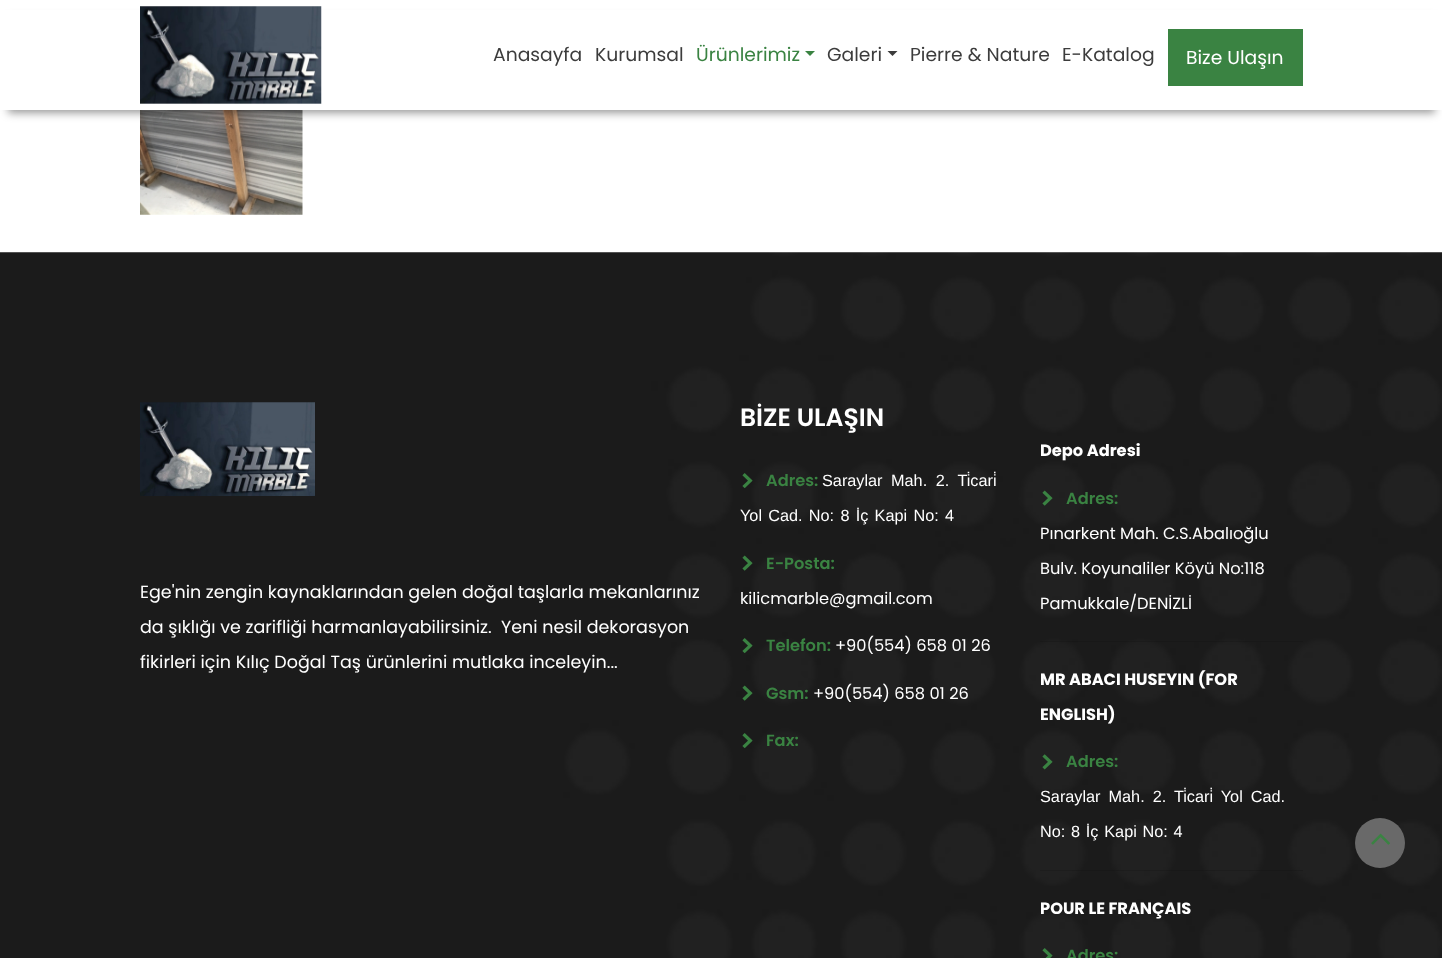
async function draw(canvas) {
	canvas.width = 1442;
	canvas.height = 958;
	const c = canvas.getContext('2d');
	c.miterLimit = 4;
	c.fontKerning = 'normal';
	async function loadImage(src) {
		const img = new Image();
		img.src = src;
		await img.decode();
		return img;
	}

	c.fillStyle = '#fff';
	c.fillRect(0, 0, 1442, 958);
	c.drawImage(await loadImage('img2.png'), 140, 110, 163, 105);
	c.fillStyle = '#00000066';
	c.filter = 'blur(4px)';
	c.beginPath();
	c.rect(8, 18, 1427, 95);
	c.fill();
	c.filter = 'none';
	c.fillStyle = '#fff';
	c.fillRect(0, 10, 1442, 100);
	c.drawImage(await loadImage('img1.png'), 140, 6, 182, 98);
	c.font = '18.75px Poppins';
	c.fillStyle = '#3c3c3c';
	c.fillText('Anasayfa', 493, 61);
	c.fillText('Kurumsal', 595, 61);
	c.fillStyle = '#3a8342';
	c.fillText('Ürünlerimiz', 696, 61);
	c.beginPath();
	c.moveTo(805, 51);
	c.lineTo(815, 51);
	c.lineTo(810, 56);
	c.closePath();
	c.fill();
	c.fillStyle = '#3c3c3c';
	c.fillText('Galeri', 827, 61);
	c.beginPath();
	c.moveTo(887.5, 51);
	c.lineTo(897.5, 51);
	c.lineTo(892.5, 56);
	c.closePath();
	c.fill();
	c.fillText('Pierre & Nature', 910, 61);
	c.fillText('E-Katalog', 1062, 61);
	c.fillStyle = '#3a8342';
	c.fillRect(1168, 29, 135, 57);
	c.fillStyle = '#fff';
	c.fillText('Bize Ulaşın', 1186, 64);
	c.drawImage(await loadImage('img3.png'), 0, 252, 1442, 706);
	c.drawImage(await loadImage('img4.png'), 140, 402, 175, 94);
	c.font = '17.5px Poppins';
	for (const [text, x, y] of [
		['Ege\'nin zengin kaynaklarından gelen doğal taşlarla mekanlarınız', 140, 598],
		['da şıklığı ve zarifliği harmanlayabilirsiniz.  Yeni nesil dekorasyon', 140, 633],
		['fikirleri için Kılıç Doğal Taş ürünlerini mutlaka inceleyin...', 140, 668],
	]) {
		c.fillText(text, x, y);
	}
	c.font = '600 25px Poppins';
	c.fillText('BİZE ULAŞIN', 740, 426);
	c.drawImage(await loadImage('img5.png'), 742, 473, 11, 16);
	c.font = '600 16.25px Poppins';
	c.fillStyle = '#3a8342';
	c.fillText('Adres:', 766, 486);
	c.wordSpacing = '4px';
	c.font = '16.25px Liberation Sans';
	c.fillStyle = '#fff';
	c.fillText('Saraylar Mah. 2. Ti̇cari̇', 822, 486);
	c.wordSpacing = '1.75px';
	c.fillText('Yol Cad. No: 8 İç Kapi No: 4', 740, 521);
	c.drawImage(await loadImage('img6.png'), 742, 555, 11, 16);
	c.wordSpacing = '0px';
	c.font = '600 16.25px Poppins';
	c.fillStyle = '#3a8342';
	c.fillText('E-Posta:', 766, 569);
	c.font = '16.25px Poppins';
	c.fillStyle = '#fff';
	c.fillText('kilicmarble@gmail.com', 740, 604);
	c.drawImage(await loadImage('img7.png'), 742, 638, 11, 16);
	c.font = '600 16.25px Poppins';
	c.fillStyle = '#3a8342';
	c.fillText('Telefon:', 766, 651);
	c.font = '16.25px Poppins';
	c.fillStyle = '#fff';
	c.fillText('+90(554) 658 01 26', 835, 651);
	c.drawImage(await loadImage('img8.png'), 742, 685, 11, 16);
	c.font = '600 16.25px Poppins';
	c.fillStyle = '#3a8342';
	c.fillText('Gsm:', 766, 699);
	c.font = '16.25px Poppins';
	c.fillStyle = '#fff';
	c.fillText('+90(554) 658 01 26', 813, 699);
	c.drawImage(await loadImage('img9.png'), 742, 733, 11, 16);
	c.font = '600 16.25px Poppins';
	c.fillStyle = '#3a8342';
	c.fillText('Fax:', 766, 746);
	c.font = 'bold 16.25px Poppins';
	c.fillStyle = '#fff';
	c.fillText('Depo Adresi', 1040, 456);
	c.drawImage(await loadImage('img10.png'), 1042, 490, 11, 16);
	c.font = '600 16.25px Poppins';
	c.fillStyle = '#3a8342';
	c.fillText('Adres:', 1066, 504);
	c.font = '16.25px Poppins';
	c.fillStyle = '#fff';
	for (const [text, x, y] of [
		['Pınarkent Mah. C.S.Abalıoğlu', 1040, 539],
		['Bulv. Koyunaliler Köyü No:118', 1040, 574],
		['Pamukkale/DENİZLİ', 1040, 609],
	]) {
		c.fillText(text, x, y);
	}
	c.fillStyle = '#0000001a';
	c.fillRect(1040, 641, 263, 1);
	c.font = 'bold 16.25px Poppins';
	c.fillStyle = '#fff';
	c.fillText('MR ABACI HUSEYIN (FOR', 1040, 685);
	c.fillText('ENGLISH)', 1040, 720);
	c.drawImage(await loadImage('img11.png'), 1042, 754, 11, 16);
	c.font = '600 16.25px Poppins';
	c.fillStyle = '#3a8342';
	c.fillText('Adres:', 1066, 767);
	c.wordSpacing = '3.5px';
	c.font = '16.25px Liberation Sans';
	c.fillStyle = '#fff';
	c.fillText('Saraylar Mah. 2. Ti̇cari̇ Yol Cad.', 1040, 802);
	c.wordSpacing = '1.25px';
	c.fillText('No: 8 İç Kapi No: 4', 1040, 837);
	c.fillStyle = '#0000001a';
	c.fillRect(1040, 870, 263, 1);
	c.wordSpacing = '0px';
	c.font = 'bold 16.25px Poppins';
	c.fillStyle = '#fff';
	c.fillText('POUR LE FRANÇAIS', 1040, 914);
	c.drawImage(await loadImage('img12.png'), 1042, 948, 11, 10);
	c.font = '600 16.25px Poppins';
	c.fillStyle = '#3a8342';
	c.fillText('Adres:', 1066, 961);
	c.fillStyle = '#696969';
	c.beginPath();
	c.arc(1380, 843, 25, 0, 2 * Math.PI);
	c.fill();
	c.drawImage(await loadImage('img13.png'), 1371, 833, 19, 12);
}

draw(document.querySelector('canvas'));
